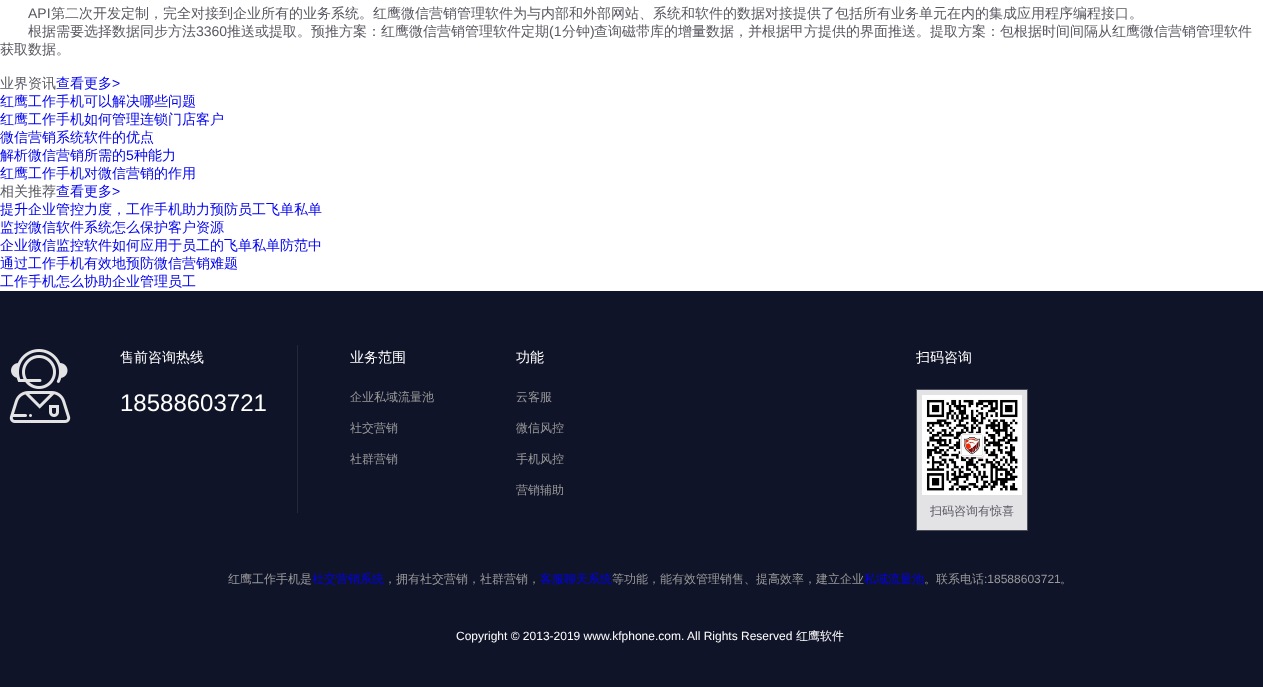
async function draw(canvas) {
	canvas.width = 1263;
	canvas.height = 687;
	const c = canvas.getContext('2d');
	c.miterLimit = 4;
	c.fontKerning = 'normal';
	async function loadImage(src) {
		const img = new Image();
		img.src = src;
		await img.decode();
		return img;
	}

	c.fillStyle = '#fff';
	c.fillRect(0, 0, 1263, 687);
	c.font = '14px Liberation Sans';
	c.fillStyle = '#595961';
	c.fillText('API', 28, 18);
	c.font = '500 14px WenQuanYi Zen Hei';
	c.fillText('第二次开发定制，完全对接到企业所有的业务系统。红鹰微信营销管理软件为与内部和外部网站、系统和软件的数据对接提供了包括所有业务单元在内的集成应用程序编程接口。', 51, 18);
	c.fillText('根据需要选择数据同步方法', 28, 36);
	c.font = '14px Liberation Sans';
	c.fillText('3360', 196, 36);
	c.font = '500 14px WenQuanYi Zen Hei';
	c.fillText('推送或提取。预推方案：红鹰微信营销管理软件定期', 227, 36);
	c.font = '14px Liberation Sans';
	c.fillText('(1', 549, 36);
	c.font = '500 14px WenQuanYi Zen Hei';
	c.fillText('分钟', 562, 36);
	c.font = '14px Liberation Sans';
	c.fillText(')', 590, 36);
	c.font = '500 14px WenQuanYi Zen Hei';
	for (const [text, x, y] of [
		['查询磁带库的增量数据，并根据甲方提供的界面推送。提取方案：包根据时间间隔从红鹰微信营销管理软件', 594, 36],
		['获取数据。', 0, 54],
		['业界资讯', 0, 88],
	]) {
		c.fillText(text, x, y);
	}
	c.fillStyle = '#00e';
	c.fillText('查看更多', 56, 88);
	c.font = '14px Liberation Sans';
	c.fillText('>', 112, 88);
	c.font = '500 14px WenQuanYi Zen Hei';
	for (const [text, x, y] of [
		['红鹰工作手机可以解决哪些问题', 0, 106],
		['红鹰工作手机如何管理连锁门店客户', 0, 124],
		['微信营销系统软件的优点', 0, 142],
		['解析微信营销所需的', 0, 160],
	]) {
		c.fillText(text, x, y);
	}
	c.font = '14px Liberation Sans';
	c.fillText('5', 126, 160);
	c.font = '500 14px WenQuanYi Zen Hei';
	c.fillText('种能力', 134, 160);
	c.fillText('红鹰工作手机对微信营销的作用', 0, 178);
	c.fillStyle = '#595961';
	c.fillText('相关推荐', 0, 196);
	c.fillStyle = '#00e';
	c.fillText('查看更多', 56, 196);
	c.font = '14px Liberation Sans';
	c.fillText('>', 112, 196);
	c.font = '500 14px WenQuanYi Zen Hei';
	for (const [text, x, y] of [
		['提升企业管控力度，工作手机助力预防员工飞单私单', 0, 214],
		['监控微信软件系统怎么保护客户资源', 0, 232],
		['企业微信监控软件如何应用于员工的飞单私单防范中', 0, 250],
		['通过工作手机有效地预防微信营销难题', 0, 268],
		['工作手机怎么协助企业管理员工', 0, 286],
	]) {
		c.fillText(text, x, y);
	}
	c.fillStyle = '#101429';
	c.fillRect(0, 291, 1263, 396);
	c.drawImage(await loadImage('img1.png'), 9, 349, 62, 74);
	c.fillStyle = '#fff';
	c.fillText('售前咨询热线', 120, 362);
	c.font = '24px Liberation Sans';
	c.fillText('18588603721', 120, 411);
	c.fillStyle = '#262836';
	c.fillRect(297, 345, 1, 168);
	c.font = '500 14px WenQuanYi Zen Hei';
	c.fillStyle = '#fff';
	c.fillText('业务范围', 350, 362);
	c.font = '500 12px WenQuanYi Zen Hei';
	c.fillStyle = '#999';
	for (const [text, x, y] of [
		['企业私域流量池', 350, 401],
		['社交营销', 350, 432],
		['社群营销', 350, 463],
	]) {
		c.fillText(text, x, y);
	}
	c.font = '500 14px WenQuanYi Zen Hei';
	c.fillStyle = '#fff';
	c.fillText('功能', 516, 362);
	c.font = '500 12px WenQuanYi Zen Hei';
	c.fillStyle = '#999';
	for (const [text, x, y] of [
		['云客服', 516, 401],
		['微信风控', 516, 432],
		['手机风控', 516, 463],
		['营销辅助', 516, 494],
	]) {
		c.fillText(text, x, y);
	}
	c.font = '500 14px WenQuanYi Zen Hei';
	c.fillStyle = '#fff';
	c.fillText('扫码咨询', 916, 362);
	c.fillStyle = '#e3e2e5';
	c.beginPath();
	c.rect(916.5, 389.5, 111, 141);
	c.fill();
	c.strokeStyle = '#4c4e59';
	c.stroke();
	c.drawImage(await loadImage('img2.png'), 922, 395, 100, 100);
	c.font = '500 12px WenQuanYi Zen Hei';
	c.fillStyle = '#595961';
	c.fillText('扫码咨询有惊喜', 930, 515);
	c.fillStyle = '#999';
	c.fillText('红鹰工作手机是', 228, 583);
	c.fillStyle = '#00e';
	c.fillText('社交营销系统', 312, 583);
	c.fillStyle = '#999';
	c.fillText('，拥有社交营销，社群营销，', 384, 583);
	c.fillStyle = '#00e';
	c.fillText('客服聊天系统', 540, 583);
	c.fillStyle = '#999';
	c.fillText('等功能，能有效管理销售、提高效率，建立企业', 612, 583);
	c.fillStyle = '#00e';
	c.fillText('私域流量池', 864, 583);
	c.fillStyle = '#999';
	c.fillText('。联系电话', 924, 583);
	c.font = '12px Liberation Sans';
	c.fillText(':18588603721', 984, 583);
	c.font = '500 12px WenQuanYi Zen Hei';
	c.fillText('。', 1060, 583);
	c.font = '12px Liberation Sans';
	c.fillStyle = '#fff';
	c.fillText('Copyright © 2013-2019 www.kfphone.com. All Rights Reserved', 456, 640);
	c.font = '500 12px WenQuanYi Zen Hei';
	c.fillText('红鹰软件', 796, 640);
}

draw(document.querySelector('canvas'));
